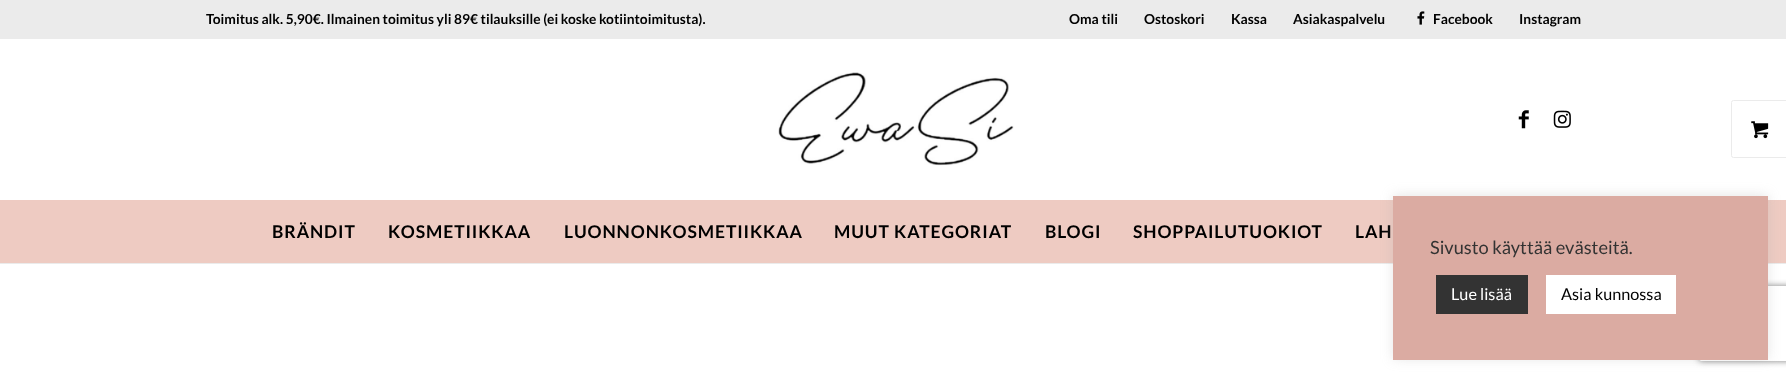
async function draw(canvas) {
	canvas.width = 1786;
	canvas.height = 378;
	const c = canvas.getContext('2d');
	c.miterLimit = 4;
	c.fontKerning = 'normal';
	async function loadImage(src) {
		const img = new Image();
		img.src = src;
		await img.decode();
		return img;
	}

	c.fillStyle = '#fff';
	c.fillRect(0, 0, 1786, 378);
	c.fillStyle = '#ebebeb';
	c.fillRect(0, 0, 1786, 39);
	c.font = 'bold 13.75px Lato';
	c.fillStyle = '#000';
	for (const [text, x, y] of [
		['Toimitus alk. 5,90€. Ilmainen toimitus yli 89€ tilauksille (ei koske kotiintoimitusta).', 206, 24],
		['Oma tili', 1069, 24],
		['Ostoskori', 1144, 24],
		['Kassa', 1231, 24],
		['Asiakaspalvelu', 1293, 24],
	]) {
		c.fillText(text, x, y);
	}
	c.drawImage(await loadImage('img1.png'), 1417, 11, 8, 14);
	c.fillText('Facebook', 1433, 24);
	c.fillText('Instagram', 1519, 24);
	c.fillStyle = '#ebebeb';
	c.fillRect(0, 263, 1786, 1);
	c.drawImage(await loadImage('img2.png'), 778, 72, 236, 94);
	c.drawImage(await loadImage('img3.png'), 1518, 110, 11, 19);
	c.drawImage(await loadImage('img4.png'), 1553, 110, 18, 18);
	c.beginPath();
	c.roundRect(1731.5, 100.5, 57, 57, 2);
	c.strokeStyle = '#ebebeb';
	c.stroke();
	c.drawImage(await loadImage('img5.png'), 1751, 121, 18, 18);
	c.fillStyle = '#eecbc2';
	c.fillRect(0, 200, 1786, 63);
	c.letterSpacing = '0.9px';
	c.font = 'bold 17.5px Lato';
	c.fillStyle = '#000';
	for (const [text, x, y] of [
		['BRÄNDIT', 272, 238],
		['KOSMETIIKKAA', 388, 238],
		['LUONNONKOSMETIIKKAA', 564, 238],
		['MUUT KATEGORIAT', 834, 238],
		['BLOGI', 1045, 238],
		['SHOPPAILUTUOKIOT', 1133, 238],
		['LAH', 1355, 238],
	]) {
		c.fillText(text, x, y);
	}
	c.fillStyle = '#acabab4d';
	c.filter = 'blur(6px)';
	c.beginPath();
	c.rect(1393, 195, 375, 164);
	c.fill();
	c.filter = 'none';
	c.save();
	c.beginPath();
	c.moveTo(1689, 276);
	c.lineTo(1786, 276);
	c.lineTo(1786, 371);
	c.lineTo(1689, 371);
	c.closePath();
	c.moveTo(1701.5, 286);
	c.lineTo(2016.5, 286);
	c.bezierCurveTo(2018, 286, 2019, 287, 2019, 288.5);
	c.lineTo(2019, 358.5);
	c.bezierCurveTo(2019, 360, 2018, 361, 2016.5, 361);
	c.lineTo(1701.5, 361);
	c.bezierCurveTo(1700, 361, 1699, 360, 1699, 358.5);
	c.lineTo(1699, 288.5);
	c.bezierCurveTo(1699, 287, 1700, 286, 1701.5, 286);
	c.closePath();
	c.clip('evenodd');
	c.fillStyle = '#808080';
	c.filter = 'blur(3px)';
	c.beginPath();
	c.roundRect(1699, 286, 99, 75, 2.5);
	c.fill();
	c.filter = 'none';
	c.restore();
	c.fillStyle = '#dbaba2';
	c.fillRect(1393, 196, 375, 164);
	c.letterSpacing = '0px';
	c.font = '18.25px Lato';
	c.fillStyle = '#333';
	c.fillText('Sivusto käyttää evästeitä.', 1430, 254);
	c.fillRect(1436, 275, 92, 39);
	c.font = '16.25px Lato';
	c.fillStyle = '#fff';
	c.fillText('Lue lisää', 1451, 300);
	c.fillRect(1546, 275, 130, 39);
	c.fillStyle = '#000';
	c.fillText('Asia kunnossa', 1561, 300);
}

draw(document.querySelector('canvas'));
